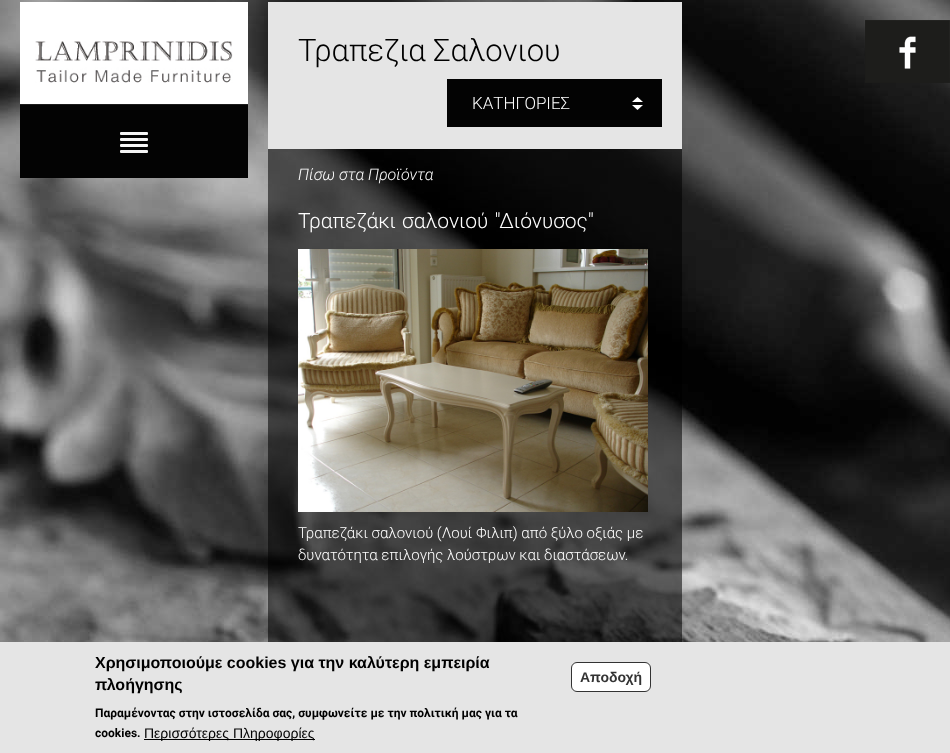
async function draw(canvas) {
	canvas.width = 950;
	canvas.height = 753;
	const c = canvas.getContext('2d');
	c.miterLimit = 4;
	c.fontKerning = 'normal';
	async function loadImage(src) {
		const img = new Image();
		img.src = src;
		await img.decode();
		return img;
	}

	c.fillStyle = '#fff';
	c.fillRect(0, 0, 950, 753);
	c.drawImage(await loadImage('img1.png'), 0, 0, 950, 642);
	c.fillRect(20, 2, 228, 102);
	c.drawImage(await loadImage('img2.png'), 35, 41, 198, 42);
	c.fillStyle = '#030303';
	c.fillRect(20, 105, 228, 73);
	c.fillStyle = '#1c1c1c';
	c.fillRect(20, 104, 228, 1);
	c.fillStyle = '#f5f5f5';
	c.beginPath();
	c.roundRect(120, 132, 28, 3, 1);
	c.fill();
	c.beginPath();
	c.roundRect(120, 138, 28, 3, 1);
	c.fill();
	c.beginPath();
	c.roundRect(120, 144, 28, 3, 1);
	c.fill();
	c.beginPath();
	c.roundRect(120, 150, 28, 3, 1);
	c.fill();
	c.fillStyle = '#e5e5e5';
	c.fillRect(268, 2, 414, 147);
	c.font = '300 31px Roboto';
	c.fillStyle = '#000';
	c.fillText('Τραπεζια Σαλονιου', 298, 61);
	c.fillStyle = '#0000008c';
	c.fillRect(268, 149, 414, 493);
	c.fillStyle = '#030303';
	c.fillRect(447, 79, 215, 48);
	c.drawImage(await loadImage('img3.png'), 632, 97, 11, 13);
	c.font = '300 17px Roboto';
	c.fillStyle = '#fff';
	c.fillText('ΚΑΤΗΓΟΡΙΕΣ', 472, 109);
	c.font = 'italic 300 16px Roboto';
	c.fillText('Πίσω στα Προϊόντα', 298, 180);
	c.wordSpacing = '1px';
	c.font = '300 21px Roboto';
	c.fillText('Τραπεζάκι σαλονιού "Διόνυσος"', 298, 228);
	c.drawImage(await loadImage('img4.png'), 298, 249, 350, 263);
	c.wordSpacing = '0px';
	c.font = '300 15px Roboto';
	c.fillText('Τραπεζάκι σαλονιού (Λουί Φιλιπ) από ξύλο οξιάς με', 298, 538);
	c.fillText('δυνατότητα επιλογής λούστρων και διαστάσεων.', 298, 560);
	c.drawImage(await loadImage('img5.png'), 865, 20, 85, 63);
	c.fillStyle = '#e5e5e5';
	c.fillRect(0, 642, 950, 111);
	c.font = 'bold 16px Liberation Sans';
	c.fillStyle = '#000';
	c.fillText('Χρησιμοποιούμε cookies για την καλύτερη εμπειρία', 95, 668);
	c.fillText('πλοήγησης', 95, 690);
	c.font = 'bold 12px Roboto';
	c.fillText('Παραμένοντας στην ιστοσελίδα σας, συμφωνείτε με την πολιτική μας για τα', 95, 717);
	c.fillText('cookies.', 95, 737);
	c.fillRect(144, 739, 171, 1);
	c.font = '14px Liberation Sans';
	c.fillText('Περισσότερες Πληροφορίες', 144, 738);
	c.fillStyle = '#fff';
	c.beginPath();
	c.roundRect(571.5, 662.5, 79, 29, 5.5);
	c.fill();
	c.strokeStyle = '#333';
	c.stroke();
	c.font = 'bold 14px Liberation Sans';
	c.fillStyle = '#333';
	c.fillText('Αποδοχή', 580, 682);
}

draw(document.querySelector('canvas'));
